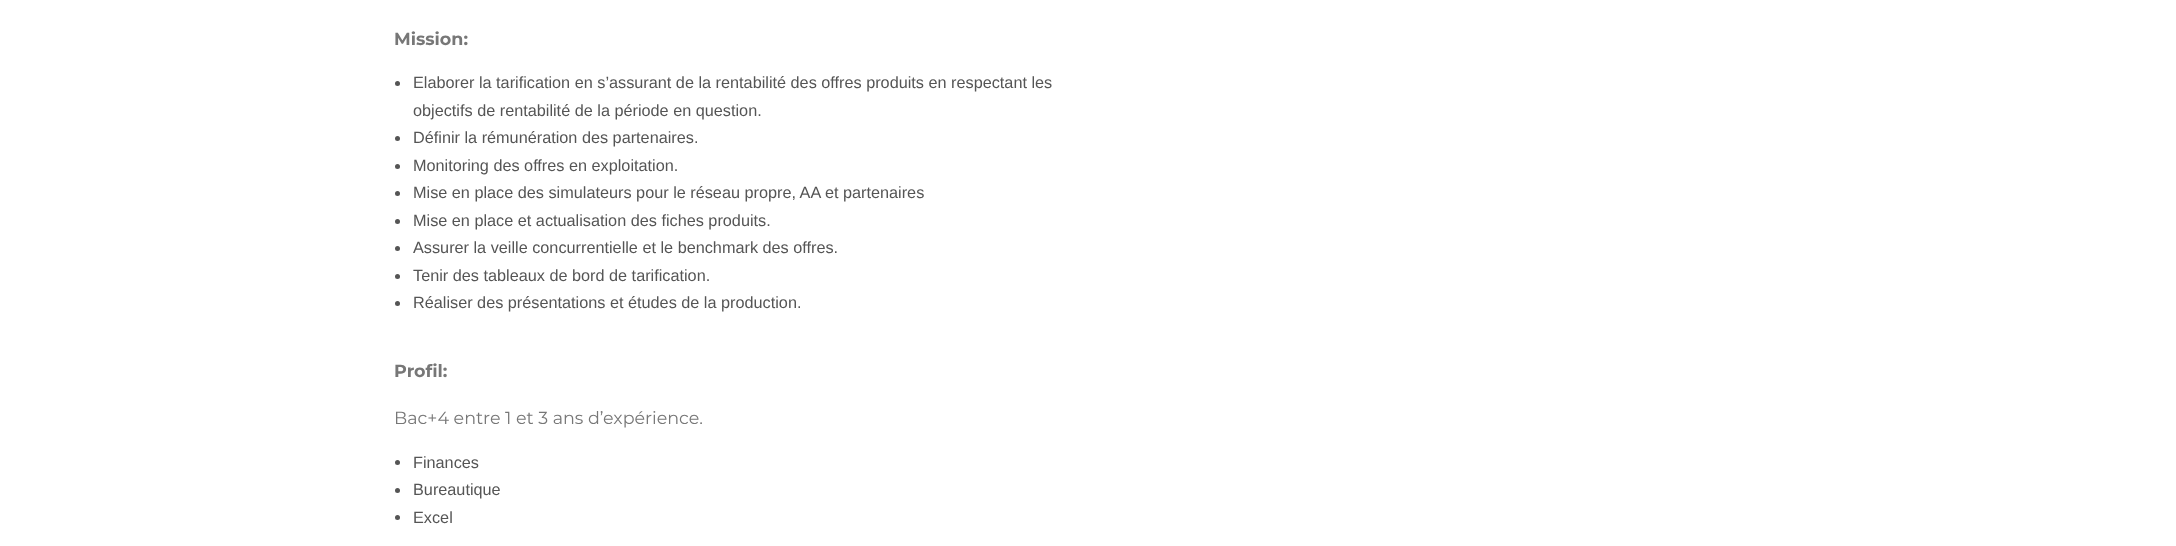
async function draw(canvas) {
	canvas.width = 2176;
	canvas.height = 546;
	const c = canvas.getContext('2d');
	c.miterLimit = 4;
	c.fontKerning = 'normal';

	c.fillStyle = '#fff';
	c.fillRect(0, 0, 2176, 546);
	c.font = 'bold 17.5px Montserrat';
	c.fillStyle = '#777';
	c.fillText('Mission:', 394, 45);
	c.fillStyle = '#555';
	c.beginPath();
	c.arc(397.5, 83.5, 2.5, 0, 2 * Math.PI);
	c.fill();
	c.font = '16.25px Liberation Sans';
	c.fillText('Elaborer la tarification en s’assurant de la rentabilité des offres produits en respectant les', 413, 88);
	c.fillText('objectifs de rentabilité de la période en question.', 413, 116);
	c.beginPath();
	c.arc(397.5, 138.5, 2.5, 0, 2 * Math.PI);
	c.fill();
	c.fillText('Définir la rémunération des partenaires.', 413, 143);
	c.beginPath();
	c.arc(397.5, 166.5, 2.5, 0, 2 * Math.PI);
	c.fill();
	c.fillText('Monitoring des offres en exploitation.', 413, 171);
	c.beginPath();
	c.arc(397.5, 193.5, 2.5, 0, 2 * Math.PI);
	c.fill();
	c.fillText('Mise en place des simulateurs pour le réseau propre, AA et partenaires', 413, 198);
	c.beginPath();
	c.arc(397.5, 221.5, 2.5, 0, 2 * Math.PI);
	c.fill();
	c.fillText('Mise en place et actualisation des fiches produits.', 413, 226);
	c.beginPath();
	c.arc(397.5, 248.5, 2.5, 0, 2 * Math.PI);
	c.fill();
	c.fillText('Assurer la veille concurrentielle et le benchmark des offres.', 413, 253);
	c.beginPath();
	c.arc(397.5, 276.5, 2.5, 0, 2 * Math.PI);
	c.fill();
	c.fillText('Tenir des tableaux de bord de tarification.', 413, 281);
	c.beginPath();
	c.arc(397.5, 303.5, 2.5, 0, 2 * Math.PI);
	c.fill();
	c.fillText('Réaliser des présentations et études de la production.', 413, 308);
	c.font = 'bold 17.5px Montserrat';
	c.fillStyle = '#777';
	c.fillText('Profil:', 394, 377);
	c.font = '17.5px Montserrat';
	c.fillText('Bac+4 entre 1 et 3 ans d’expérience.', 394, 424);
	c.fillStyle = '#555';
	c.beginPath();
	c.arc(397.5, 462.5, 2.5, 0, 2 * Math.PI);
	c.fill();
	c.font = '16.25px Liberation Sans';
	c.fillText('Finances', 413, 468);
	c.beginPath();
	c.arc(397.5, 490.5, 2.5, 0, 2 * Math.PI);
	c.fill();
	c.fillText('Bureautique', 413, 495);
	c.beginPath();
	c.arc(397.5, 517.5, 2.5, 0, 2 * Math.PI);
	c.fill();
	c.fillText('Excel', 413, 523);
}

draw(document.querySelector('canvas'));
